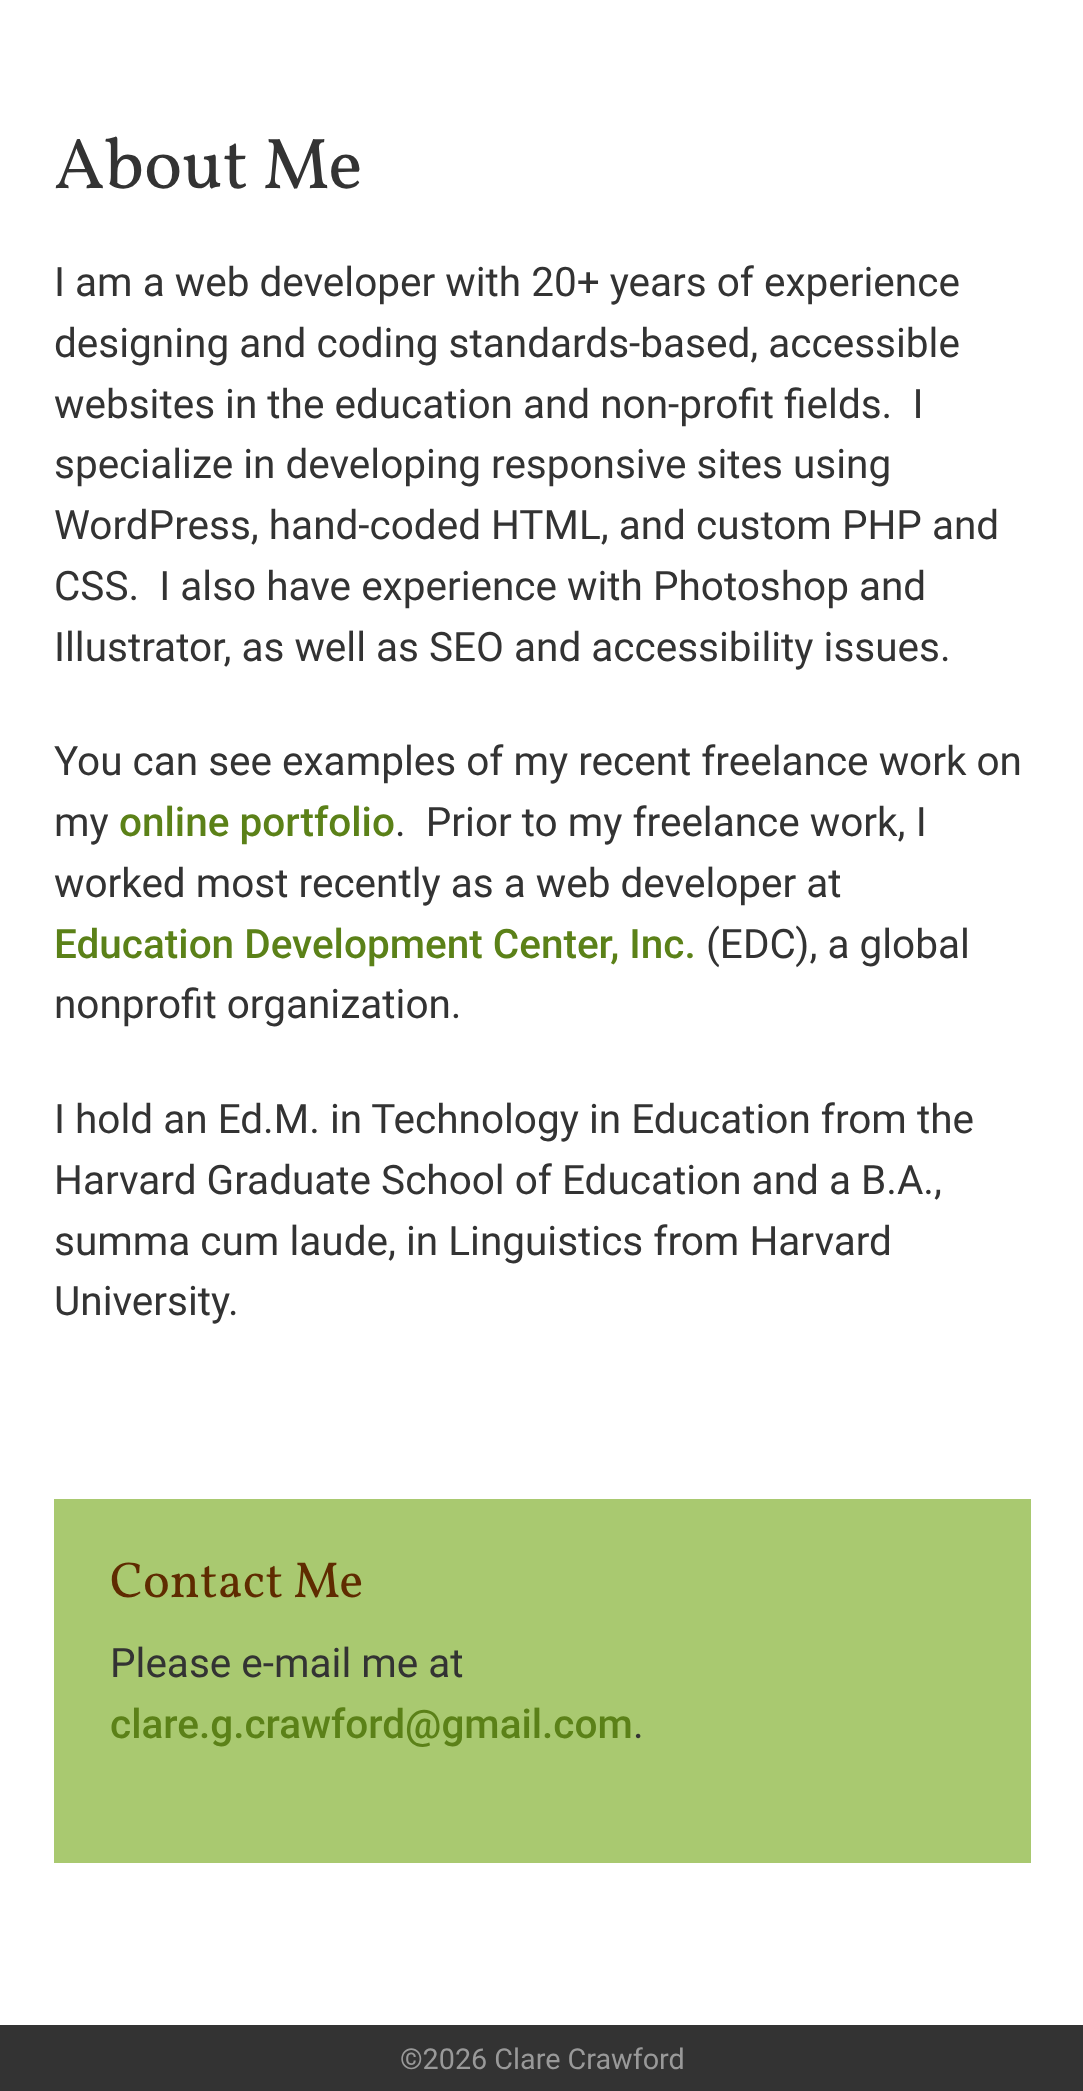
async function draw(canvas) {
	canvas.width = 1083;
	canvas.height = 2091;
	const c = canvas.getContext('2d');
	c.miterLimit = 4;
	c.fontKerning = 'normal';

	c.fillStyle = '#fff';
	c.fillRect(0, 0, 1083, 2091);
	c.font = '72px Vollkorn';
	c.fillStyle = '#333';
	c.fillText('About Me', 54, 188);
	c.font = '40.5px Roboto';
	for (const [text, x, y] of [
		['I am a web developer with 20+ years of experience', 54, 296],
		['designing and coding standards-based, accessible', 54, 357],
		['websites in the education and non-profit fields.  I', 54, 418],
		['specialize in developing responsive sites using', 54, 478],
		['WordPress, hand-coded HTML, and custom PHP and', 54, 539],
		['CSS.  I also have experience with Photoshop and', 54, 600],
		['Illustrator, as well as SEO and accessibility issues.', 54, 661],
		['You can see examples of my recent freelance work on', 54, 775],
		['my', 54, 836],
	]) {
		c.fillText(text, x, y);
	}
	c.font = '500 40.5px Roboto';
	c.fillStyle = '#5b8118';
	c.fillText('online portfolio', 119, 836);
	c.font = '40.5px Roboto';
	c.fillStyle = '#333';
	c.fillText('.  Prior to my freelance work, I', 395, 836);
	c.fillText('worked most recently as a web developer at', 54, 897);
	c.font = '500 40.5px Roboto';
	c.fillStyle = '#5b8118';
	c.fillText('Education Development Center, Inc.', 54, 958);
	c.font = '40.5px Roboto';
	c.fillStyle = '#333';
	for (const [text, x, y] of [
		['(EDC), a global', 706, 958],
		['nonprofit organization.', 54, 1018],
		['I hold an Ed.M. in Technology in Education from the', 54, 1133],
		['Harvard Graduate School of Education and a B.A.,', 54, 1194],
		['summa cum laude, in Linguistics from Harvard', 54, 1255],
		['University.', 54, 1315],
	]) {
		c.fillText(text, x, y);
	}
	c.fillStyle = '#a9c970';
	c.fillRect(54, 1499, 977, 364);
	c.font = '50.5px Vollkorn';
	c.fillStyle = '#5f2b00';
	c.fillText('Contact Me', 110, 1597);
	c.font = '40.5px Roboto';
	c.fillStyle = '#333';
	c.fillText('Please e-mail me at', 110, 1677);
	c.font = '500 40.5px Roboto';
	c.fillStyle = '#5b8118';
	c.fillText('clare.g.crawford@gmail.com', 110, 1738);
	c.font = '40.5px Roboto';
	c.fillStyle = '#333';
	c.fillText('.', 633, 1738);
	c.fillRect(0, 2025, 1083, 66);
	c.font = '28.75px Roboto';
	c.fillStyle = '#999';
	c.fillText('©2026 Clare Crawford', 400, 2069);
}

draw(document.querySelector('canvas'));
